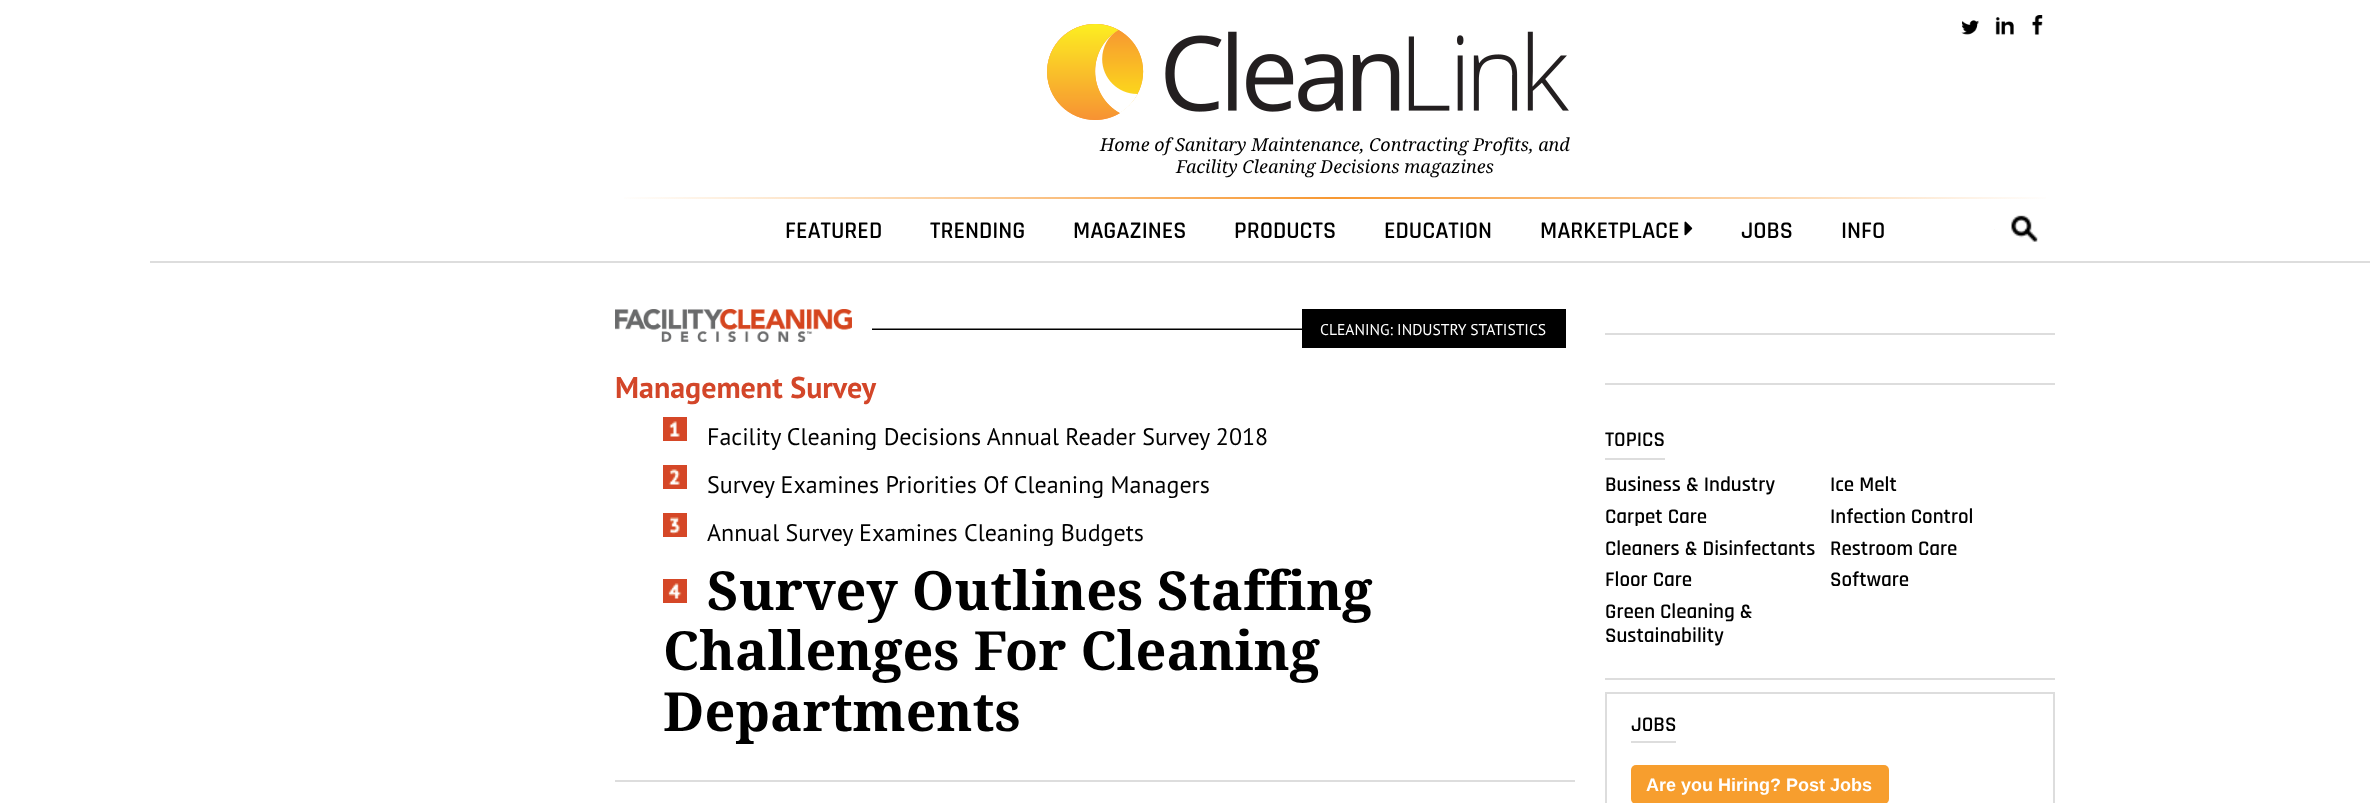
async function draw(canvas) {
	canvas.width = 2370;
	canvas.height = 803;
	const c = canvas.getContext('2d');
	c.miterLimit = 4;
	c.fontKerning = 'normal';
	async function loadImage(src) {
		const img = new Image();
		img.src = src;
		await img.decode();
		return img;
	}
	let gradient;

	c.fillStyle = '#fff';
	c.fillRect(0, 0, 2370, 803);
	c.drawImage(await loadImage('img1.png'), 1961, 20, 18, 15);
	c.drawImage(await loadImage('img2.png'), 1995, 17, 19, 18);
	c.drawImage(await loadImage('img3.png'), 2032, 15, 11, 20);
	c.drawImage(await loadImage('img4.png'), 1047, 24, 522, 96);
	c.font = 'italic 18px Droid Serif';
	c.fillStyle = '#000';
	c.fillText('Home of Sanitary Maintenance, Contracting Profits, and', 1100, 151);
	c.fillText('Facility Cleaning Decisions magazines', 1176, 173);
	gradient = c.createLinearGradient(615, 197, 2055, 197);
	gradient.addColorStop(0, '#fff');
	gradient.addColorStop(0.07, '#fef1e2');
	gradient.addColorStop(0.5, '#f79832');
	gradient.addColorStop(1, '#fff');
	c.fillStyle = gradient;
	c.fillRect(624, 197, 1422, 2);
	c.font = '600 24px Rajdhani';
	c.fillStyle = '#000';
	for (const [text, x, y] of [
		['FEATURED', 785, 238],
		['TRENDING', 930, 238],
		['MAGAZINES', 1073, 238],
		['PRODUCTS', 1234, 238],
		['EDUCATION', 1384, 238],
		['MARKETPLACE', 1540, 238],
	]) {
		c.fillText(text, x, y);
	}
	c.drawImage(await loadImage('img5.png'), 1684, 221, 9, 15);
	c.fillText('JOBS', 1741, 238);
	c.fillText('INFO', 1841, 238);
	c.drawImage(await loadImage('img6.png'), 1994, 229, 1, 1);
	c.drawImage(await loadImage('img7.png'), 1995, 204, 60, 51);
	c.fillStyle = '#ddd';
	c.fillRect(150, 261, 2220, 2);
	c.drawImage(await loadImage('img8.png'), 872, 328, 430, 2);
	c.drawImage(await loadImage('img9.png'), 615, 309, 237, 33);
	c.fillStyle = '#000';
	c.fillRect(1302, 309, 264, 39);
	c.font = '15.6px PT Sans';
	c.fillStyle = '#fff';
	c.fillText('CLEANING: INDUSTRY STATISTICS', 1320, 335);
	c.font = 'bold 30px PT Sans';
	c.fillStyle = '#d34629';
	c.fillText('Management Survey', 615, 398);
	c.drawImage(await loadImage('img10.png'), 663, 417, 24, 24);
	c.font = '24px PT Sans';
	c.fillStyle = '#000';
	c.fillText('Facility Cleaning Decisions Annual Reader Survey 2018', 707, 445);
	c.drawImage(await loadImage('img11.png'), 663, 465, 24, 24);
	c.fillText('Survey Examines Priorities Of Cleaning Managers', 707, 493);
	c.drawImage(await loadImage('img12.png'), 663, 513, 24, 24);
	c.fillText('Annual Survey Examines Cleaning Budgets', 707, 541);
	c.font = 'bold 54px Droid Serif';
	for (const [text, x, y] of [
		['Survey Outlines Staffing', 707, 610],
		['Challenges For Cleaning', 663, 670],
		['Departments', 663, 731],
	]) {
		c.fillText(text, x, y);
	}
	c.drawImage(await loadImage('img13.png'), 663, 579, 24, 24);
	for (const [x, y, w, h, color] of [
		[615, 780, 960, 2, '#ddd'],
		[1605, 333, 450, 2, '#ddd'],
		[1605, 383, 450, 2, '#ddd'],
		[1605, 458, 60, 2, '#ddd'],
	]) {
		c.fillStyle = color;
		c.fillRect(x, y, w, h);
	}
	c.font = '600 21px Rajdhani';
	c.fillStyle = '#000';
	for (const [text, x, y] of [
		['TOPICS', 1605, 446],
		['Business & Industry', 1605, 491],
		['Carpet Care', 1605, 523],
		['Cleaners & Disinfectants', 1605, 555],
		['Floor Care', 1605, 586],
		['Green Cleaning &', 1605, 618],
		['Sustainability', 1605, 642],
		['Ice Melt', 1830, 491],
		['Infection Control', 1830, 523],
		['Restroom Care', 1830, 555],
		['Software', 1830, 586],
	]) {
		c.fillText(text, x, y);
	}
	c.fillStyle = '#ddd';
	c.fillRect(1605, 678, 450, 2);
	c.strokeStyle = '#ddd';
	c.lineWidth = 2;
	c.strokeRect(1606, 693, 448, 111);
	c.fillRect(1631, 741, 45, 2);
	c.fillStyle = '#000';
	c.fillText('JOBS', 1631, 731);
	c.fillStyle = '#f79e2e';
	c.beginPath();
	c.roundRect(1631, 765, 258, 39, 5);
	c.fill();
	c.font = 'bold 18px Liberation Sans';
	c.fillStyle = '#fff';
	c.fillText('Are you Hiring? Post Jobs', 1646, 791);
}

draw(document.querySelector('canvas'));
